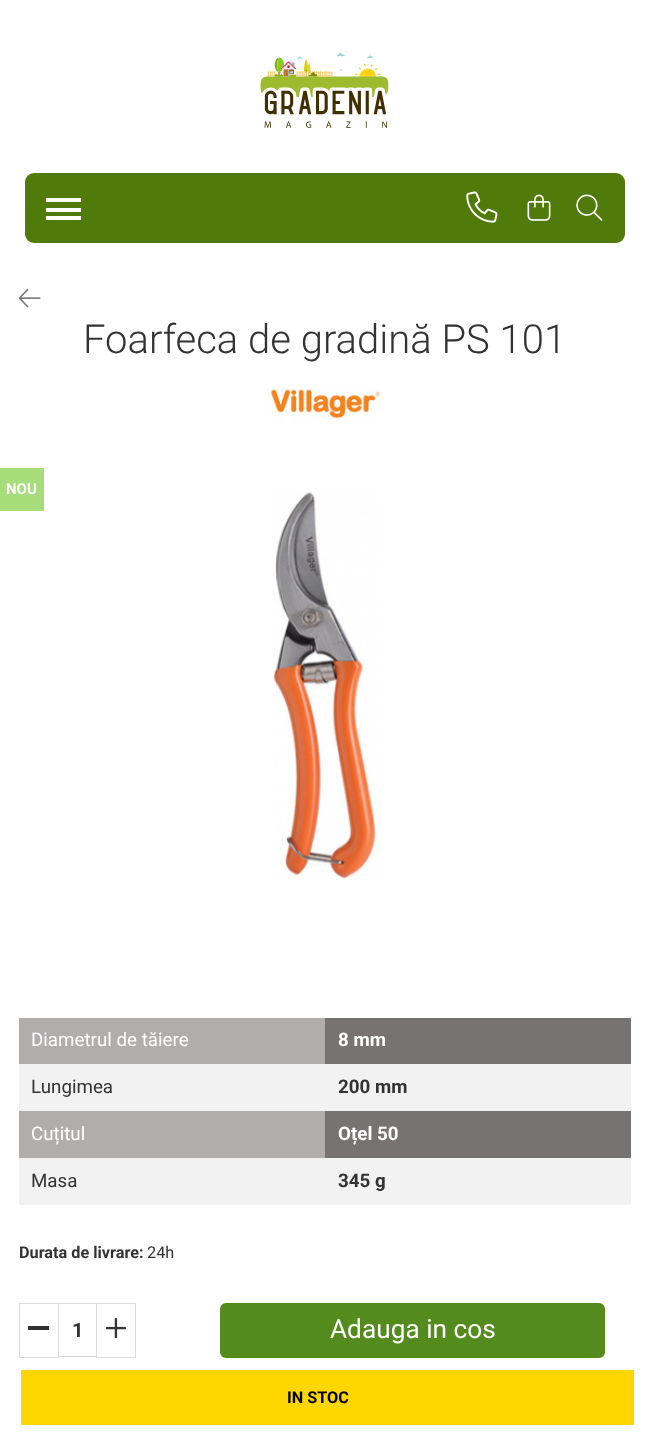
async function draw(canvas) {
	canvas.width = 649;
	canvas.height = 1431;
	const c = canvas.getContext('2d');
	c.miterLimit = 4;
	c.fontKerning = 'normal';
	async function loadImage(src) {
		const img = new Image();
		img.src = src;
		await img.decode();
		return img;
	}

	c.fillStyle = '#fff';
	c.fillRect(0, 0, 649, 1431);
	c.drawImage(await loadImage('img1.png'), 260, 53, 129, 75);
	c.fillStyle = '#507a09';
	c.beginPath();
	c.roundRect(25, 173, 600, 70, 9);
	c.fill();
	for (const [x, y, w, h, color] of [
		[46, 208, 35, 4, '#fff'],
		[46, 198, 35, 4, '#fff'],
		[46, 216, 35, 4, '#fff'],
	]) {
		c.fillStyle = color;
		c.fillRect(x, y, w, h);
	}
	c.drawImage(await loadImage('img2.png'), 466, 191, 32, 32);
	c.drawImage(await loadImage('img3.png'), 527, 194, 24, 27);
	c.drawImage(await loadImage('img4.png'), 576, 194, 27, 27);
	c.drawImage(await loadImage('img5.png'), 18, 288, 23, 20);
	c.font = '300 40px Roboto';
	c.fillStyle = '#333';
	c.fillText('Foarfeca de gradină PS 101', 83, 353);
	c.drawImage(await loadImage('img6.png'), 269, 389, 112, 30);
	c.fillStyle = '#a6dc79';
	c.fillRect(0, 468, 44, 43);
	c.font = 'bold 15px Roboto';
	c.fillStyle = '#fff';
	c.fillText('NOU', 6, 494);
	c.drawImage(await loadImage('img7.png'), 272, 492, 107, 388);
	c.fillStyle = '#b0adad';
	c.fillRect(19, 1018, 306, 46);
	c.font = '18.75px Roboto';
	c.fillStyle = '#fff';
	c.fillText('Diametrul de tăiere', 31, 1046);
	c.fillStyle = '#777373';
	c.fillRect(325, 1018, 306, 46);
	c.font = 'bold 18.75px Roboto';
	c.fillStyle = '#fff';
	c.fillText('8 mm', 338, 1046);
	c.fillStyle = '#f2f2f2';
	c.fillRect(19, 1064, 612, 47);
	c.font = '18.75px Roboto';
	c.fillStyle = '#333';
	c.fillText('Lungimea', 31, 1093);
	c.font = 'bold 18.75px Roboto';
	c.fillText('200 mm', 338, 1093);
	c.fillStyle = '#b0adad';
	c.fillRect(19, 1111, 306, 47);
	c.font = '18.75px Roboto';
	c.fillStyle = '#fff';
	c.fillText('Cuțitul', 31, 1140);
	c.fillStyle = '#777373';
	c.fillRect(325, 1111, 306, 47);
	c.font = 'bold 18.75px Roboto';
	c.fillStyle = '#fff';
	c.fillText('Oțel 50', 338, 1140);
	c.fillStyle = '#f2f2f2';
	c.fillRect(19, 1158, 612, 47);
	c.font = '18.75px Roboto';
	c.fillStyle = '#333';
	c.fillText('Masa', 31, 1187);
	c.font = 'bold 18.75px Roboto';
	c.fillText('345 g', 338, 1187);
	c.font = 'bold 16.25px Roboto';
	c.fillText('Durata de livrare:', 19, 1258);
	c.font = '16.25px Roboto';
	c.fillText('24h', 147, 1258);
	c.strokeStyle = '#dbdbdb';
	c.strokeRect(19.5, 1303.5, 39, 54);
	for (const [x, y, w, h, color] of [
		[28, 1326, 21, 4, '#333'],
		[59, 1303, 37, 1, '#dbdbdb'],
		[59, 1356, 37, 1, '#dbdbdb'],
	]) {
		c.fillStyle = color;
		c.fillRect(x, y, w, h);
	}
	c.font = 'bold 20px Roboto';
	c.fillStyle = '#333';
	c.fillText('1', 72, 1337);
	c.strokeRect(96.5, 1303.5, 39, 54);
	c.drawImage(await loadImage('img8.png'), 105, 1318, 22, 21);
	c.fillStyle = '#538b1c';
	c.beginPath();
	c.roundRect(220, 1303, 385, 55, 6);
	c.fill();
	c.font = '26.25px Roboto';
	c.fillStyle = '#fff';
	c.fillText('Adauga in cos', 330, 1338);
	c.fillStyle = '#ffd600';
	c.fillRect(21, 1370, 613, 55);
	c.font = 'bold 16.25px Roboto';
	c.fillStyle = '#000';
	c.fillText('IN STOC', 287, 1403);
}

draw(document.querySelector('canvas'));
